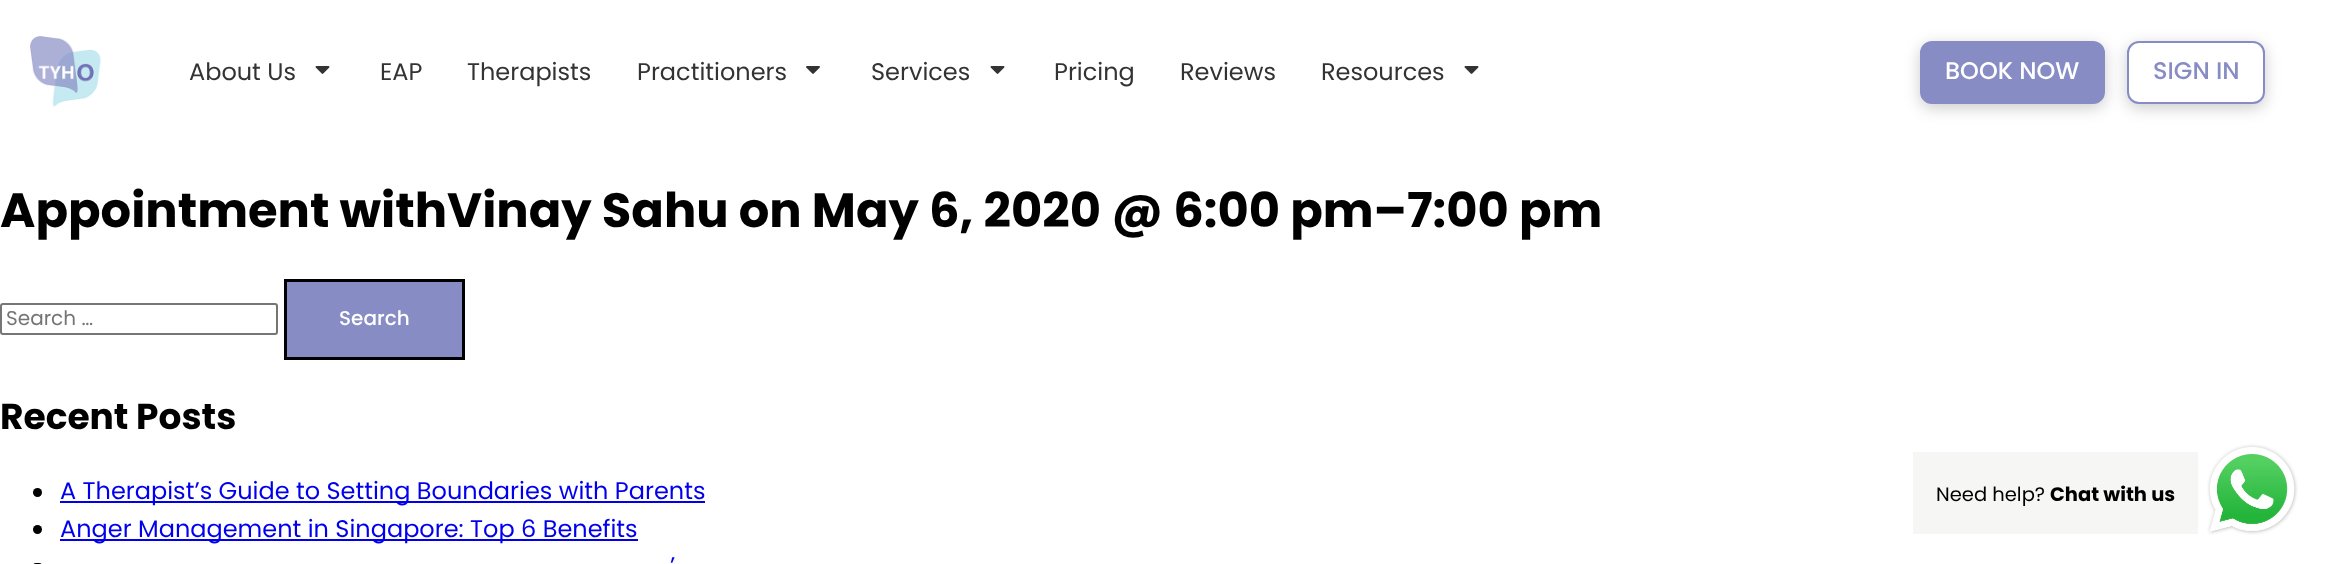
async function draw(canvas) {
	canvas.width = 2332;
	canvas.height = 564;
	const c = canvas.getContext('2d');
	c.miterLimit = 4;
	c.fontKerning = 'normal';
	async function loadImage(src) {
		const img = new Image();
		img.src = src;
		await img.decode();
		return img;
	}

	c.fillStyle = '#fff';
	c.fillRect(0, 0, 2332, 564);
	c.drawImage(await loadImage('img1.png'), 30, 36, 71, 71);
	c.font = '24px Poppins';
	c.fillStyle = '#333';
	c.fillText('About Us', 189, 80);
	c.drawImage(await loadImage('img2.png'), 315, 66, 15, 8);
	for (const [text, x, y] of [
		['EAP', 380, 80],
		['Therapists', 467, 80],
		['Practitioners', 637, 80],
	]) {
		c.fillText(text, x, y);
	}
	c.drawImage(await loadImage('img3.png'), 806, 66, 14, 8);
	c.fillText('Services', 871, 80);
	c.drawImage(await loadImage('img2.png'), 990, 66, 15, 8);
	for (const [text, x, y] of [
		['Pricing', 1054, 80],
		['Reviews', 1180, 80],
		['Resources', 1321, 80],
	]) {
		c.fillText(text, x, y);
	}
	c.drawImage(await loadImage('img2.png'), 1464, 66, 15, 8);
	c.fillStyle = '#00000033';
	c.filter = 'blur(7.5px)';
	c.beginPath();
	c.roundRect(1920, 45, 185, 63, 12);
	c.fill();
	c.filter = 'none';
	c.fillStyle = '#888cc4';
	c.beginPath();
	c.roundRect(1921, 42, 183, 61, 11);
	c.fill();
	c.strokeStyle = '#888cc4';
	c.lineWidth = 2;
	c.stroke();
	c.font = '500 24px Poppins';
	c.fillStyle = '#fff';
	c.fillText('BOOK NOW', 1945, 79);
	c.fillStyle = '#00000033';
	c.filter = 'blur(7.5px)';
	c.beginPath();
	c.roundRect(2127, 45, 138, 63, 12);
	c.fill();
	c.filter = 'none';
	c.fillStyle = '#fff';
	c.beginPath();
	c.roundRect(2128, 42, 136, 61, 11);
	c.fill();
	c.stroke();
	c.fillStyle = '#888cc4';
	c.fillText('SIGN IN', 2153, 79);
	c.font = 'bold 48px Poppins';
	c.fillStyle = '#000';
	c.fillText('Appointment withVinay Sahu on May 6, 2020 @ 6:00 pm–7:00 pm', 0, 227);
	c.beginPath();
	c.roundRect(1, 304, 276, 30, 2);
	c.strokeStyle = '#767676';
	c.stroke();
	c.font = '20px Poppins';
	c.fillStyle = '#757575';
	c.fillText('Search …', 6, 325);
	c.fillStyle = '#888cc4';
	c.beginPath();
	c.rect(285.5, 280.5, 178, 78);
	c.fill();
	c.strokeStyle = '#000';
	c.lineWidth = 3;
	c.stroke();
	c.font = '500 20px Poppins';
	c.fillStyle = '#fff';
	c.fillText('Search', 339, 325);
	c.font = 'bold 36px Poppins';
	c.fillStyle = '#000';
	c.fillText('Recent Posts', 0, 429);
	c.beginPath();
	c.arc(37.5, 492.5, 4.5, 0, 2 * Math.PI);
	c.fill();
	c.fillStyle = '#00e';
	c.fillRect(60, 501, 645, 2);
	c.font = '24px Poppins';
	c.fillText('A Therapist’s Guide to Setting Boundaries with Parents', 60, 499);
	c.fillStyle = '#000';
	c.beginPath();
	c.arc(37.5, 529.5, 4.5, 0, 2 * Math.PI);
	c.fill();
	c.fillStyle = '#00e';
	c.fillRect(60, 539, 578, 2);
	c.fillText('Anger Management in Singapore: Top 6 Benefits', 60, 537);
	c.fillText('’', 670, 574);
	c.fillStyle = '#000';
	c.beginPath();
	c.roundRect(33, 563, 9, 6, 4.5);
	c.fill();
	c.fillStyle = '#f6f7f5';
	c.fillRect(1913, 452, 285, 82);
	c.font = '19.5px Poppins';
	c.fillStyle = '#000';
	c.fillText('Need help?', 1936, 501);
	c.font = 'bold 19.5px Poppins';
	c.fillText('Chat with us', 2050, 501);
	c.drawImage(await loadImage('img4.png'), 2207, 444, 91, 91);
}

draw(document.querySelector('canvas'));
